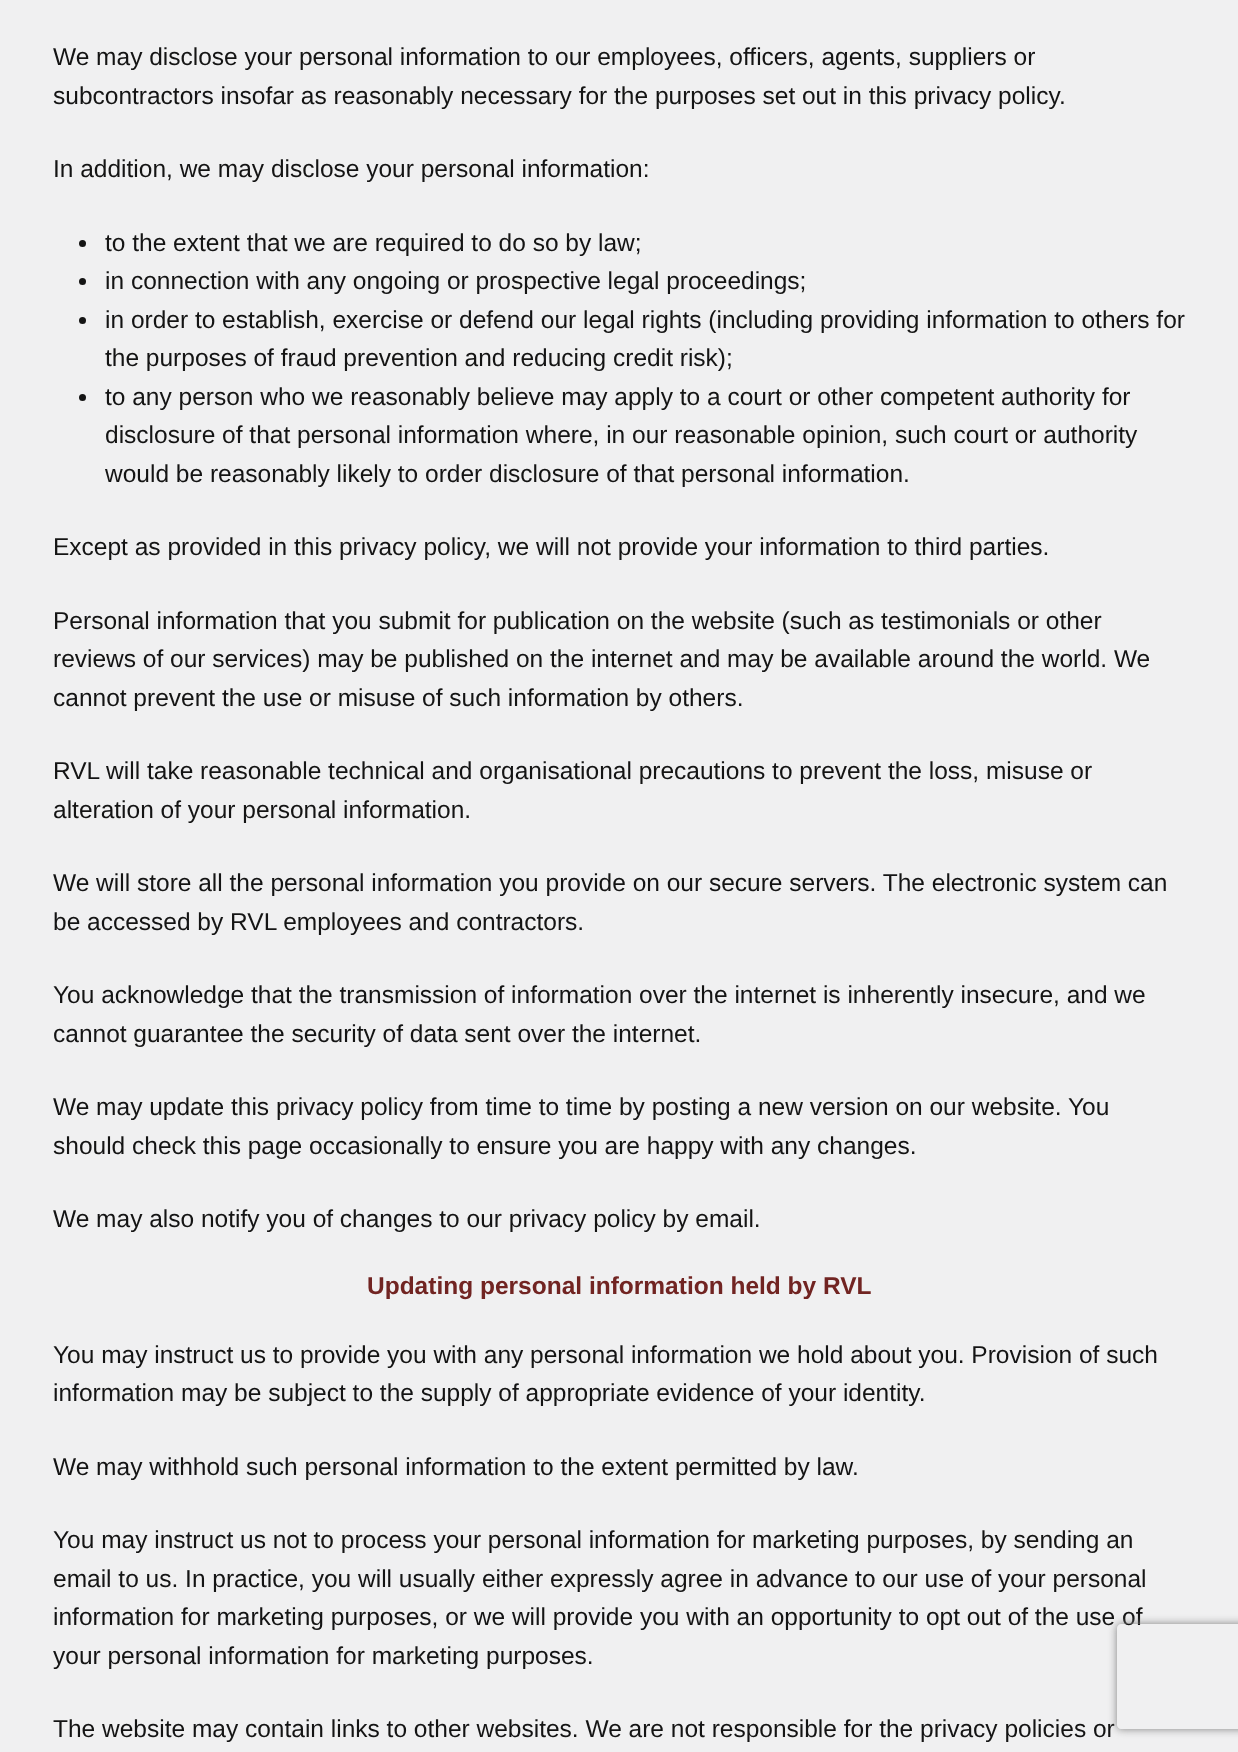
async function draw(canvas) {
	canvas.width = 1238;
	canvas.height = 1752;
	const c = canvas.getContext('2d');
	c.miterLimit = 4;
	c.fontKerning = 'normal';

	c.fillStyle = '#f0f0f1';
	c.fillRect(0, 0, 1238, 1752);
	c.font = '24.5px Liberation Sans';
	c.fillStyle = '#141414';
	for (const [text, x, y] of [
		['We may disclose your personal information to our employees, officers, agents, suppliers or', 53, 65],
		['subcontractors insofar as reasonably necessary for the purposes set out in this privacy policy.', 53, 104],
		['In addition, we may disclose your personal information:', 53, 177],
	]) {
		c.fillText(text, x, y);
	}
	c.beginPath();
	c.arc(82.5, 243.5, 3.5, 0, 2 * Math.PI);
	c.fill();
	c.fillText('to the extent that we are required to do so by law;', 105, 251);
	c.beginPath();
	c.arc(82.5, 281.5, 3.5, 0, 2 * Math.PI);
	c.fill();
	c.fillText('in connection with any ongoing or prospective legal proceedings;', 105, 289);
	c.beginPath();
	c.arc(82.5, 320.5, 3.5, 0, 2 * Math.PI);
	c.fill();
	c.fillText('in order to establish, exercise or defend our legal rights (including providing information to others for', 105, 328);
	c.fillText('the purposes of fraud prevention and reducing credit risk);', 105, 366);
	c.beginPath();
	c.arc(82.5, 397.5, 3.5, 0, 2 * Math.PI);
	c.fill();
	for (const [text, x, y] of [
		['to any person who we reasonably believe may apply to a court or other competent authority for', 105, 405],
		['disclosure of that personal information where, in our reasonable opinion, such court or authority', 105, 443],
		['would be reasonably likely to order disclosure of that personal information.', 105, 482],
		['Except as provided in this privacy policy, we will not provide your information to third parties.', 53, 555],
		['Personal information that you submit for publication on the website (such as testimonials or other', 53, 629],
		['reviews of our services) may be published on the internet and may be available around the world. We', 53, 667],
		['cannot prevent the use or misuse of such information by others.', 53, 706],
		['RVL will take reasonable technical and organisational precautions to prevent the loss, misuse or', 53, 779],
		['alteration of your personal information.', 53, 818],
		['We will store all the personal information you provide on our secure servers. The electronic system can', 53, 891],
		['be accessed by RVL employees and contractors.', 53, 930],
		['You acknowledge that the transmission of information over the internet is inherently insecure, and we', 53, 1003],
		['cannot guarantee the security of data sent over the internet.', 53, 1042],
		['We may update this privacy policy from time to time by posting a new version on our website. You', 53, 1115],
		['should check this page occasionally to ensure you are happy with any changes.', 53, 1154],
		['We may also notify you of changes to our privacy policy by email.', 53, 1227],
	]) {
		c.fillText(text, x, y);
	}
	c.font = 'bold 24.5px Liberation Sans';
	c.fillStyle = '#712422';
	c.fillText('Updating personal information held by RVL', 367, 1294);
	c.font = '24.5px Liberation Sans';
	c.fillStyle = '#141414';
	for (const [text, x, y] of [
		['You may instruct us to provide you with any personal information we hold about you. Provision of such', 53, 1363],
		['information may be subject to the supply of appropriate evidence of your identity.', 53, 1401],
		['We may withhold such personal information to the extent permitted by law.', 53, 1475],
		['You may instruct us not to process your personal information for marketing purposes, by sending an', 53, 1548],
		['email to us. In practice, you will usually either expressly agree in advance to our use of your personal', 53, 1587],
		['information for marketing purposes, or we will provide you with an opportunity to opt out of the use of', 53, 1625],
		['your personal information for marketing purposes.', 53, 1664],
		['The website may contain links to other websites. We are not responsible for the privacy policies or', 53, 1737],
	]) {
		c.fillText(text, x, y);
	}
	c.save();
	c.beginPath();
	c.moveTo(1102, 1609);
	c.lineTo(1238, 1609);
	c.lineTo(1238, 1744);
	c.lineTo(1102, 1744);
	c.closePath();
	c.moveTo(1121, 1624);
	c.lineTo(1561, 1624);
	c.bezierCurveTo(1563, 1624, 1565, 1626, 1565, 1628);
	c.lineTo(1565, 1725);
	c.bezierCurveTo(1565, 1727, 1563, 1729, 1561, 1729);
	c.lineTo(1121, 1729);
	c.bezierCurveTo(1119, 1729, 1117, 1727, 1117, 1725);
	c.lineTo(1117, 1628);
	c.bezierCurveTo(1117, 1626, 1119, 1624, 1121, 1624);
	c.closePath();
	c.clip('evenodd');
	c.fillStyle = '#808080';
	c.filter = 'blur(4.5px)';
	c.beginPath();
	c.roundRect(1117, 1624, 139, 105, 4);
	c.fill();
	c.filter = 'none';
	c.restore();
}

draw(document.querySelector('canvas'));
